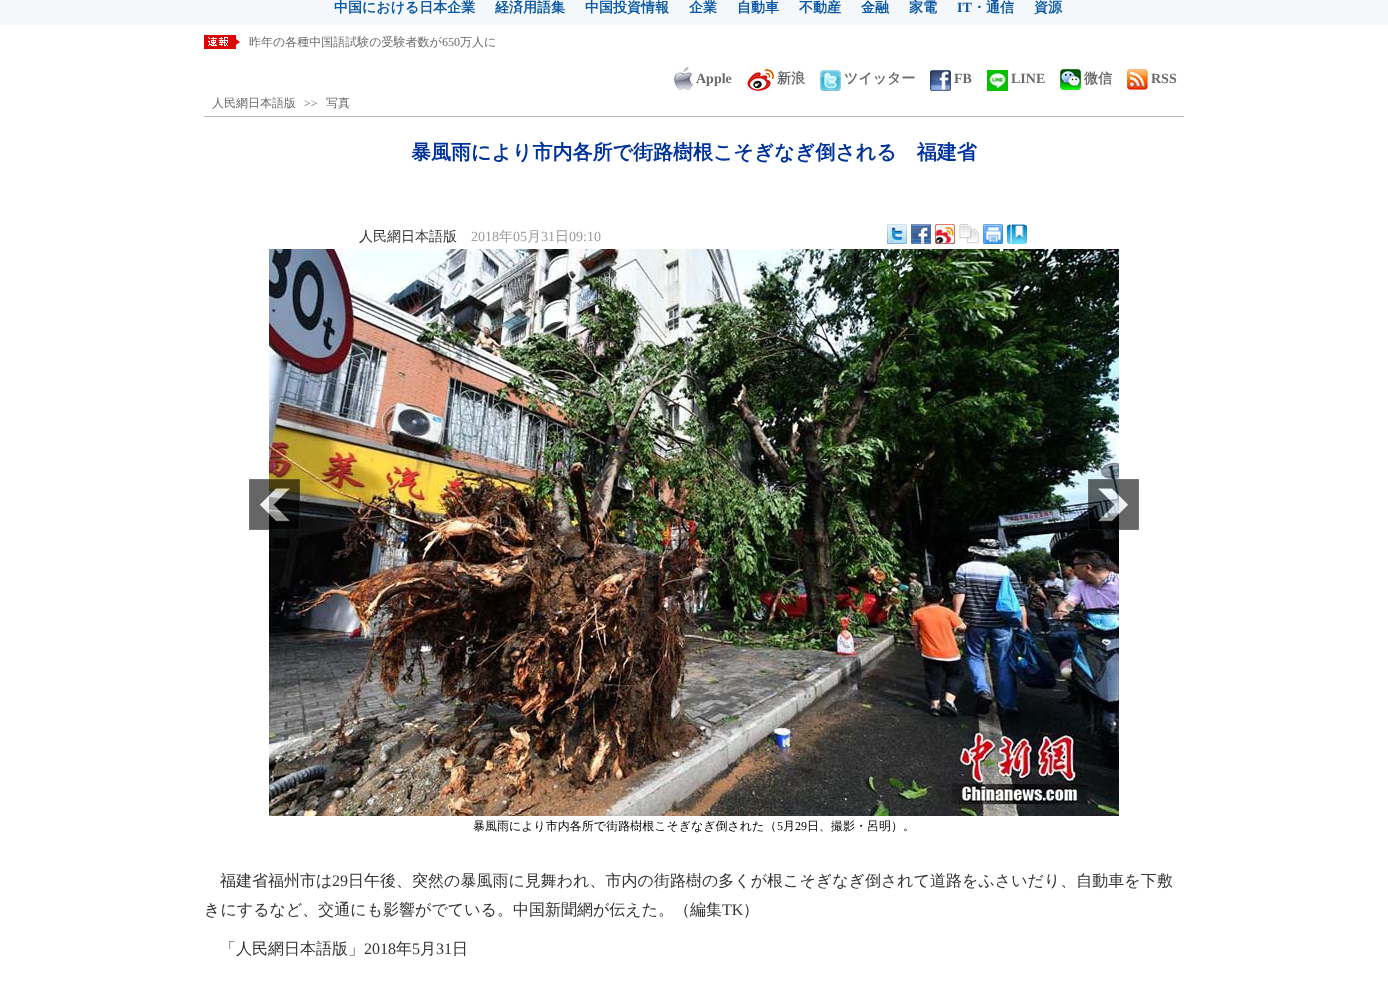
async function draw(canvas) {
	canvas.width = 1388;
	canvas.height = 981;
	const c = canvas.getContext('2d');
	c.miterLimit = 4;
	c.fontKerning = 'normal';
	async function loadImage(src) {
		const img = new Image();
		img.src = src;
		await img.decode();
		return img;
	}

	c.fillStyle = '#fff';
	c.fillRect(0, 0, 1388, 981);
	c.fillStyle = '#f5f8fa';
	c.fillRect(0, 0, 1388, 25);
	c.font = 'bold 14px WenQuanYi Zen Hei';
	c.fillStyle = '#0a58a5';
	for (const [text, x, y] of [
		['中国における日本企業', 334, 12],
		['経済用語集', 495, 12],
		['中国投資情報', 585, 12],
		['企業', 689, 12],
		['自動車', 737, 12],
		['不動産', 799, 12],
		['金融', 861, 12],
		['家電', 909, 12],
	]) {
		c.fillText(text, x, y);
	}
	c.font = 'bold 14px Liberation Serif';
	c.fillText('IT', 957, 12);
	c.font = 'bold 14px WenQuanYi Zen Hei';
	c.fillText('・通信', 972, 12);
	c.fillText('資源', 1034, 12);
	c.drawImage(await loadImage('img1.png'), 204, 35, 36, 14);
	c.font = '500 12px WenQuanYi Zen Hei';
	c.fillStyle = '#6b6b6b';
	c.fillText('昨年の各種中国語試験の受験者数が', 249, 46);
	c.font = '12px Liberation Serif';
	c.fillText('650', 442, 46);
	c.font = '500 12px WenQuanYi Zen Hei';
	c.fillText('万人に', 460, 46);
	c.drawImage(await loadImage('img2.png'), 674, 67, 19, 24);
	c.font = 'bold 14px Liberation Serif';
	c.fillText('Apple', 696, 83);
	c.drawImage(await loadImage('img3.png'), 747, 67, 27, 24);
	c.font = 'bold 14px WenQuanYi Zen Hei';
	c.fillText('新浪', 777, 83);
	c.drawImage(await loadImage('img4.png'), 820, 70, 21, 21);
	c.fillText('ツイッター', 844, 83);
	c.drawImage(await loadImage('img5.png'), 930, 70, 21, 21);
	c.font = 'bold 14px Liberation Serif';
	c.fillText('FB', 954, 83);
	c.drawImage(await loadImage('img6.png'), 987, 70, 21, 21);
	c.fillText('LINE', 1011, 83);
	c.drawImage(await loadImage('img7.png'), 1060, 67, 21, 24);
	c.font = 'bold 14px WenQuanYi Zen Hei';
	c.fillText('微信', 1084, 83);
	c.drawImage(await loadImage('img8.png'), 1127, 67, 21, 24);
	c.font = 'bold 14px Liberation Serif';
	c.fillText('RSS', 1151, 83);
	c.fillStyle = '#b7b7b7';
	c.fillRect(204, 116, 980, 1);
	c.font = '500 12px WenQuanYi Zen Hei';
	c.fillStyle = '#6b6b6b';
	c.fillText('人民網日本語版', 212, 107);
	c.font = '12px Liberation Serif';
	c.fillText('>>', 304, 107);
	c.font = '500 12px WenQuanYi Zen Hei';
	c.fillText('写真', 326, 107);
	c.font = 'bold 20px WenQuanYi Zen Hei';
	c.fillStyle = '#039';
	c.fillText('暴風雨により市内各所で街路樹根こそぎなぎ倒される　福建省', 411, 159);
	c.font = '500 14px WenQuanYi Zen Hei';
	c.fillStyle = '#333';
	c.fillText('人民網日本語版', 359, 241);
	c.font = '14px Liberation Serif';
	c.fillStyle = '#9b9b9b';
	c.fillText('2018', 471, 241);
	c.font = '500 14px WenQuanYi Zen Hei';
	c.fillText('年', 499, 241);
	c.font = '14px Liberation Serif';
	c.fillText('05', 513, 241);
	c.font = '500 14px WenQuanYi Zen Hei';
	c.fillText('月', 527, 241);
	c.font = '14px Liberation Serif';
	c.fillText('31', 541, 241);
	c.font = '500 14px WenQuanYi Zen Hei';
	c.fillText('日', 555, 241);
	c.font = '14px Liberation Serif';
	c.fillText('09:10', 569, 241);
	c.drawImage(await loadImage('img9.png'), 887, 224, 20, 20);
	c.drawImage(await loadImage('img10.png'), 911, 224, 20, 20);
	c.drawImage(await loadImage('img11.png'), 935, 224, 20, 20);
	c.drawImage(await loadImage('img12.png'), 959, 224, 20, 20);
	c.drawImage(await loadImage('img13.png'), 983, 224, 20, 20);
	c.drawImage(await loadImage('img14.png'), 1007, 224, 20, 20);
	c.drawImage(await loadImage('img17.png'), 269, 249, 850, 567);
	c.drawImage(await loadImage('img15.png'), 249, 479, 51, 51);
	c.drawImage(await loadImage('img16.png'), 1088, 479, 51, 51);
	c.font = '500 12px WenQuanYi Zen Hei';
	c.fillStyle = '#000';
	c.fillText('暴風雨により市内各所で街路樹根こそぎなぎ倒された（', 473, 830);
	c.font = '12px Liberation Serif';
	c.fillText('5', 777, 830);
	c.font = '500 12px WenQuanYi Zen Hei';
	c.fillText('月', 783, 830);
	c.font = '12px Liberation Serif';
	c.fillText('29', 795, 830);
	c.font = '500 12px WenQuanYi Zen Hei';
	c.fillText('日、撮影・呂明）。', 807, 830);
	c.font = '500 16px WenQuanYi Zen Hei';
	c.fillStyle = '#333';
	c.fillText('福建省福州市は', 220, 886);
	c.font = '16px Liberation Serif';
	c.fillText('29', 332, 886);
	c.font = '500 16px WenQuanYi Zen Hei';
	c.fillText('日午後、突然の暴風雨に見舞われ、市内の街路樹の多くが根こそぎなぎ倒されて道路をふさいだり、自動車を下敷', 348, 886);
	c.fillText('きにするなど、交通にも影響がでている。中国新聞網が伝えた。（編集', 204, 915);
	c.font = '16px Liberation Serif';
	c.fillText('TK', 722, 915);
	c.font = '500 16px WenQuanYi Zen Hei';
	c.fillText('）', 743, 915);
	c.fillText('「人民網日本語版」', 220, 954);
	c.font = '16px Liberation Serif';
	c.fillText('2018', 364, 954);
	c.font = '500 16px WenQuanYi Zen Hei';
	c.fillText('年', 396, 954);
	c.font = '16px Liberation Serif';
	c.fillText('5', 412, 954);
	c.font = '500 16px WenQuanYi Zen Hei';
	c.fillText('月', 420, 954);
	c.font = '16px Liberation Serif';
	c.fillText('31', 436, 954);
	c.font = '500 16px WenQuanYi Zen Hei';
	c.fillText('日', 452, 954);
}

draw(document.querySelector('canvas'));
